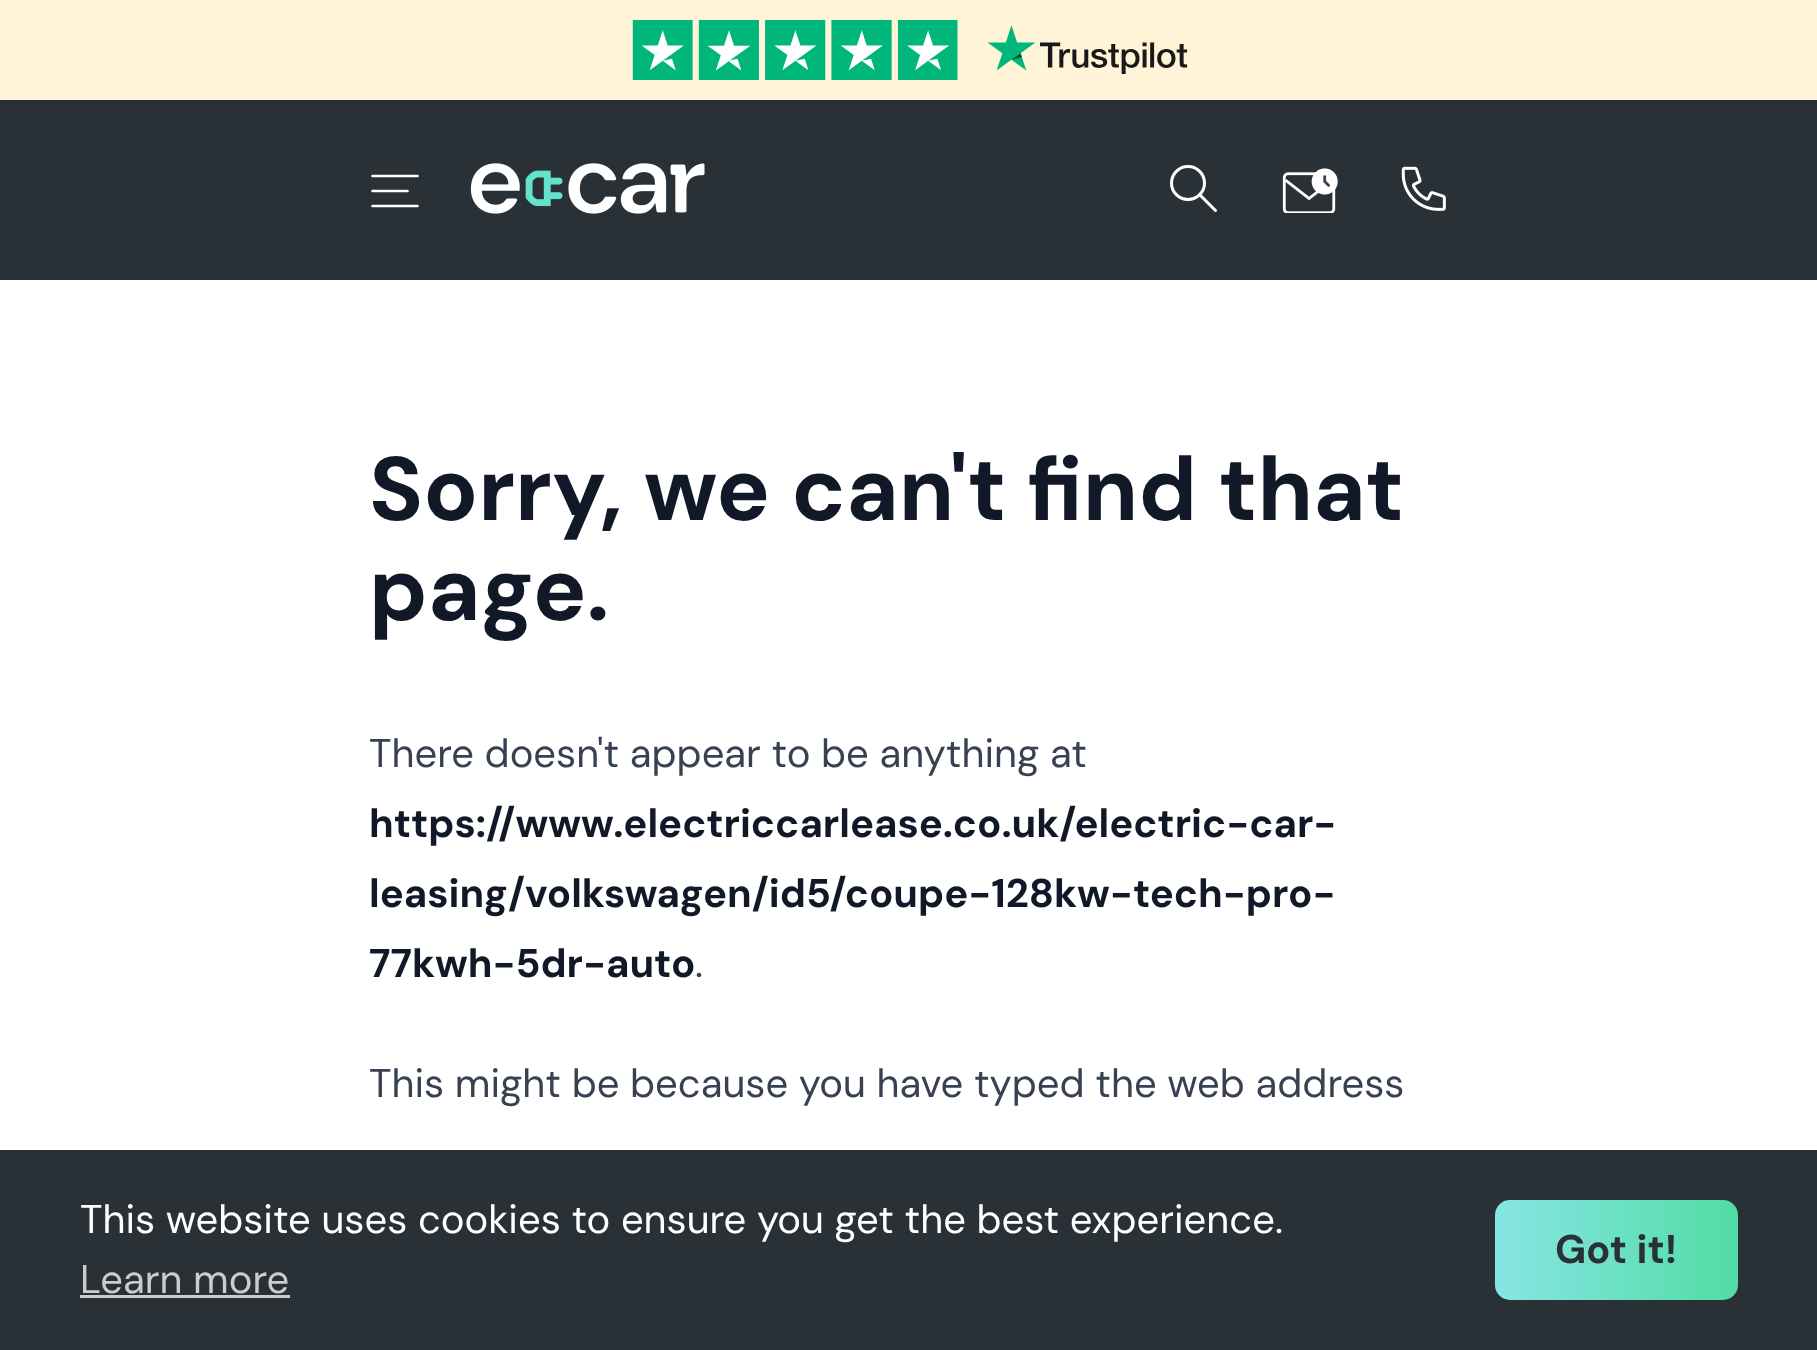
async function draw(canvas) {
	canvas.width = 1817;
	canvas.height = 1350;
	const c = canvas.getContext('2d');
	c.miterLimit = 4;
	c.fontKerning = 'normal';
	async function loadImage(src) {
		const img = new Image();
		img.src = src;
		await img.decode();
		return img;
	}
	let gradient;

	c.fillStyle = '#fff';
	c.fillRect(0, 0, 1817, 1350);
	c.fillStyle = '#2a3136';
	c.fillRect(0, 100, 1817, 180);
	c.fillStyle = '#fff4d7';
	c.fillRect(0, 0, 1817, 100);
	c.drawImage(await loadImage('img1.png'), 632, 20, 556, 60);
	c.beginPath();
	c.moveTo(372.5, 191);
	c.lineTo(407.5, 191);
	c.moveTo(372.5, 176);
	c.lineTo(417.5, 176);
	c.moveTo(372.5, 206);
	c.lineTo(417.5, 206);
	c.strokeStyle = '#fff';
	c.lineWidth = 2.6;
	c.lineCap = 'round';
	c.lineJoin = 'round';
	c.stroke();
	c.drawImage(await loadImage('img2.png'), 470, 163, 235, 51);
	c.beginPath();
	c.moveTo(1200.5, 195.5);
	c.lineTo(1215.5, 210.5);
	c.lineWidth = 3;
	c.lineJoin = 'miter';
	c.stroke();
	c.beginPath();
	c.arc(1188, 183, 16.5, 0, 2 * Math.PI);
	c.stroke();
	c.drawImage(await loadImage('img3.png'), 1282, 168, 56, 45);
	c.drawImage(await loadImage('img4.png'), 1401, 166, 45, 45);
	c.font = 'bold 90px DM Sans';
	c.fillStyle = '#111827';
	c.fillText('Sorry, we can\'t find that', 369, 520);
	c.fillText('page.', 369, 620);
	c.font = '40px DM Sans';
	c.fillStyle = '#374151';
	c.fillText('There doesn\'t appear to be anything at', 369, 767);
	c.font = 'bold 40px DM Sans';
	c.fillStyle = '#111827';
	for (const [text, x, y] of [
		['https://www.electriccarlease.co.uk/electric-car-', 369, 837],
		['leasing/volkswagen/id5/coupe-128kw-tech-pro-', 369, 907],
		['77kwh-5dr-auto', 369, 977],
	]) {
		c.fillText(text, x, y);
	}
	c.font = '40px DM Sans';
	c.fillStyle = '#374151';
	c.fillText('.', 695, 977);
	c.fillText('This might be because you have typed the web address', 369, 1097);
	c.fillStyle = '#2a3136';
	c.fillRect(0, 1150, 1817, 200);
	c.fillStyle = '#fff';
	c.fillText('This website uses cookies to ensure you get the best experience.', 80, 1233);
	c.fillStyle = '#cacccd';
	c.fillText('Learn more', 80, 1293);
	c.fillRect(80, 1295, 210, 3);
	gradient = c.createLinearGradient(1495, 1250, 1738, 1250);
	gradient.addColorStop(0, '#87e5e5');
	gradient.addColorStop(1, '#51dca4');
	c.fillStyle = gradient;
	c.beginPath();
	c.roundRect(1495, 1200, 243, 100, 15);
	c.fill();
	c.font = 'bold 40px DM Sans';
	c.fillStyle = '#2a3136';
	c.fillText('Got it!', 1555, 1263);
}

draw(document.querySelector('canvas'));
